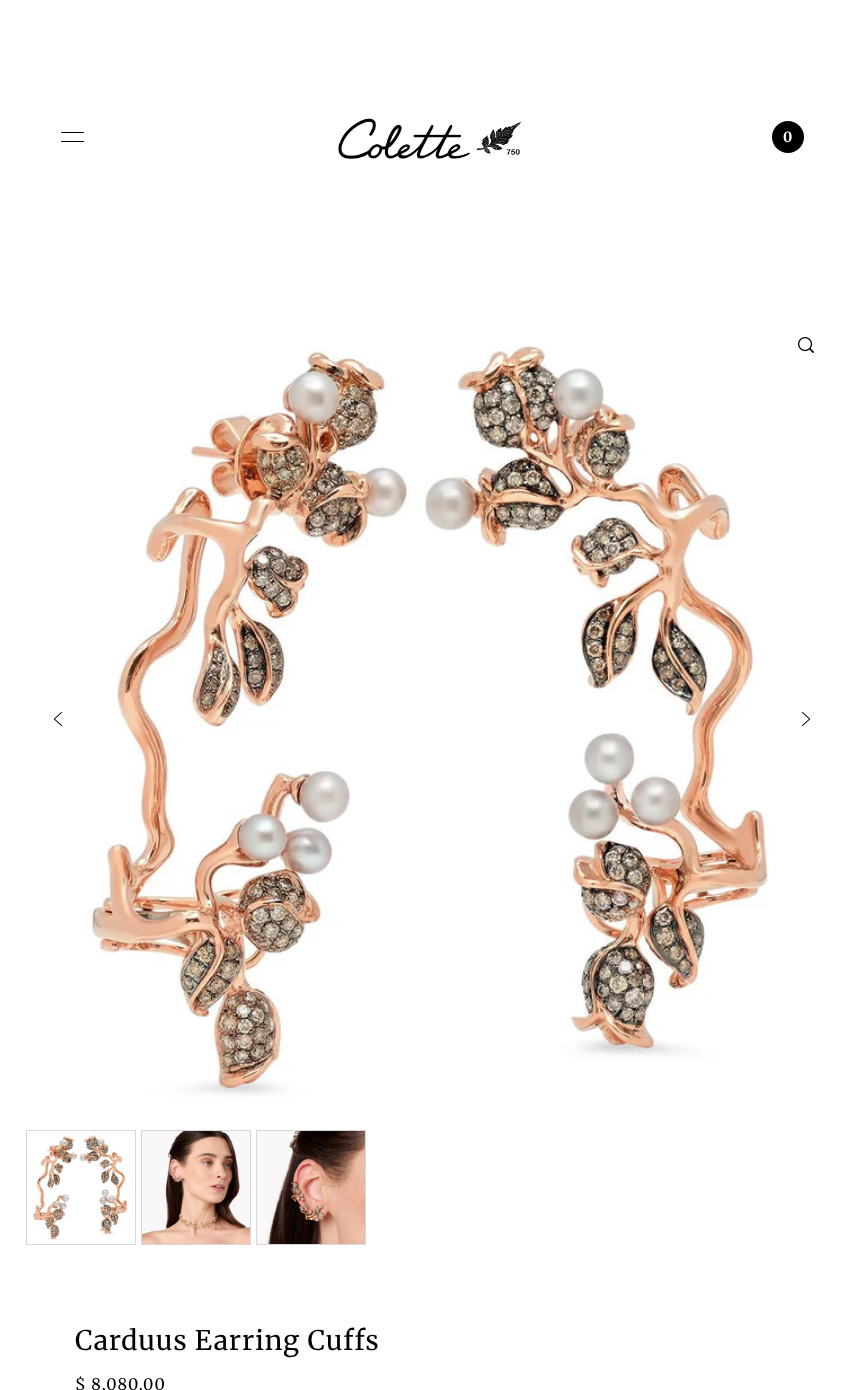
async function draw(canvas) {
	canvas.width = 864;
	canvas.height = 1390;
	const c = canvas.getContext('2d');
	c.miterLimit = 4;
	c.fontKerning = 'normal';
	async function loadImage(src) {
		const img = new Image();
		img.src = src;
		await img.decode();
		return img;
	}

	c.fillStyle = '#fff';
	c.fillRect(0, 0, 864, 1390);
	c.fillStyle = '#000';
	c.beginPath();
	c.roundRect(61, 132, 23, 1, 0.5);
	c.fill();
	c.beginPath();
	c.roundRect(61, 141, 23, 1, 0.5);
	c.fill();
	c.drawImage(await loadImage('img1.png'), 338, 118, 183, 41);
	c.beginPath();
	c.arc(788, 137, 16, 0, 2 * Math.PI);
	c.fill();
	c.font = 'bold 14px Merriweather';
	c.fillStyle = '#fff';
	c.fillText('0', 783, 142);
	c.drawImage(await loadImage('img2.png'), 54, 711, 8, 16);
	c.drawImage(await loadImage('img3.png'), 90, 345, 680, 753);
	c.drawImage(await loadImage('img4.png'), 798, 337, 16, 16);
	c.drawImage(await loadImage('img5.png'), 802, 711, 8, 16);
	c.strokeStyle = '#d7d7d7';
	c.strokeRect(26.5, 1130.5, 109, 114);
	c.drawImage(await loadImage('img6.png'), 33, 1134, 96, 106);
	c.strokeRect(141.5, 1130.5, 109, 114);
	c.drawImage(await loadImage('img7.png'), 142, 1131, 108, 113);
	c.strokeRect(256.5, 1130.5, 109, 114);
	c.drawImage(await loadImage('img8.png'), 257, 1131, 108, 113);
	c.letterSpacing = '1px';
	c.font = '27px Merriweather';
	c.fillStyle = '#000';
	c.fillText('Carduus Earring Cuffs', 75, 1350);
	c.font = '16px "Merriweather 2"';
	c.fillText('$ 8,080.00', 75, 1390);
}

draw(document.querySelector('canvas'));
